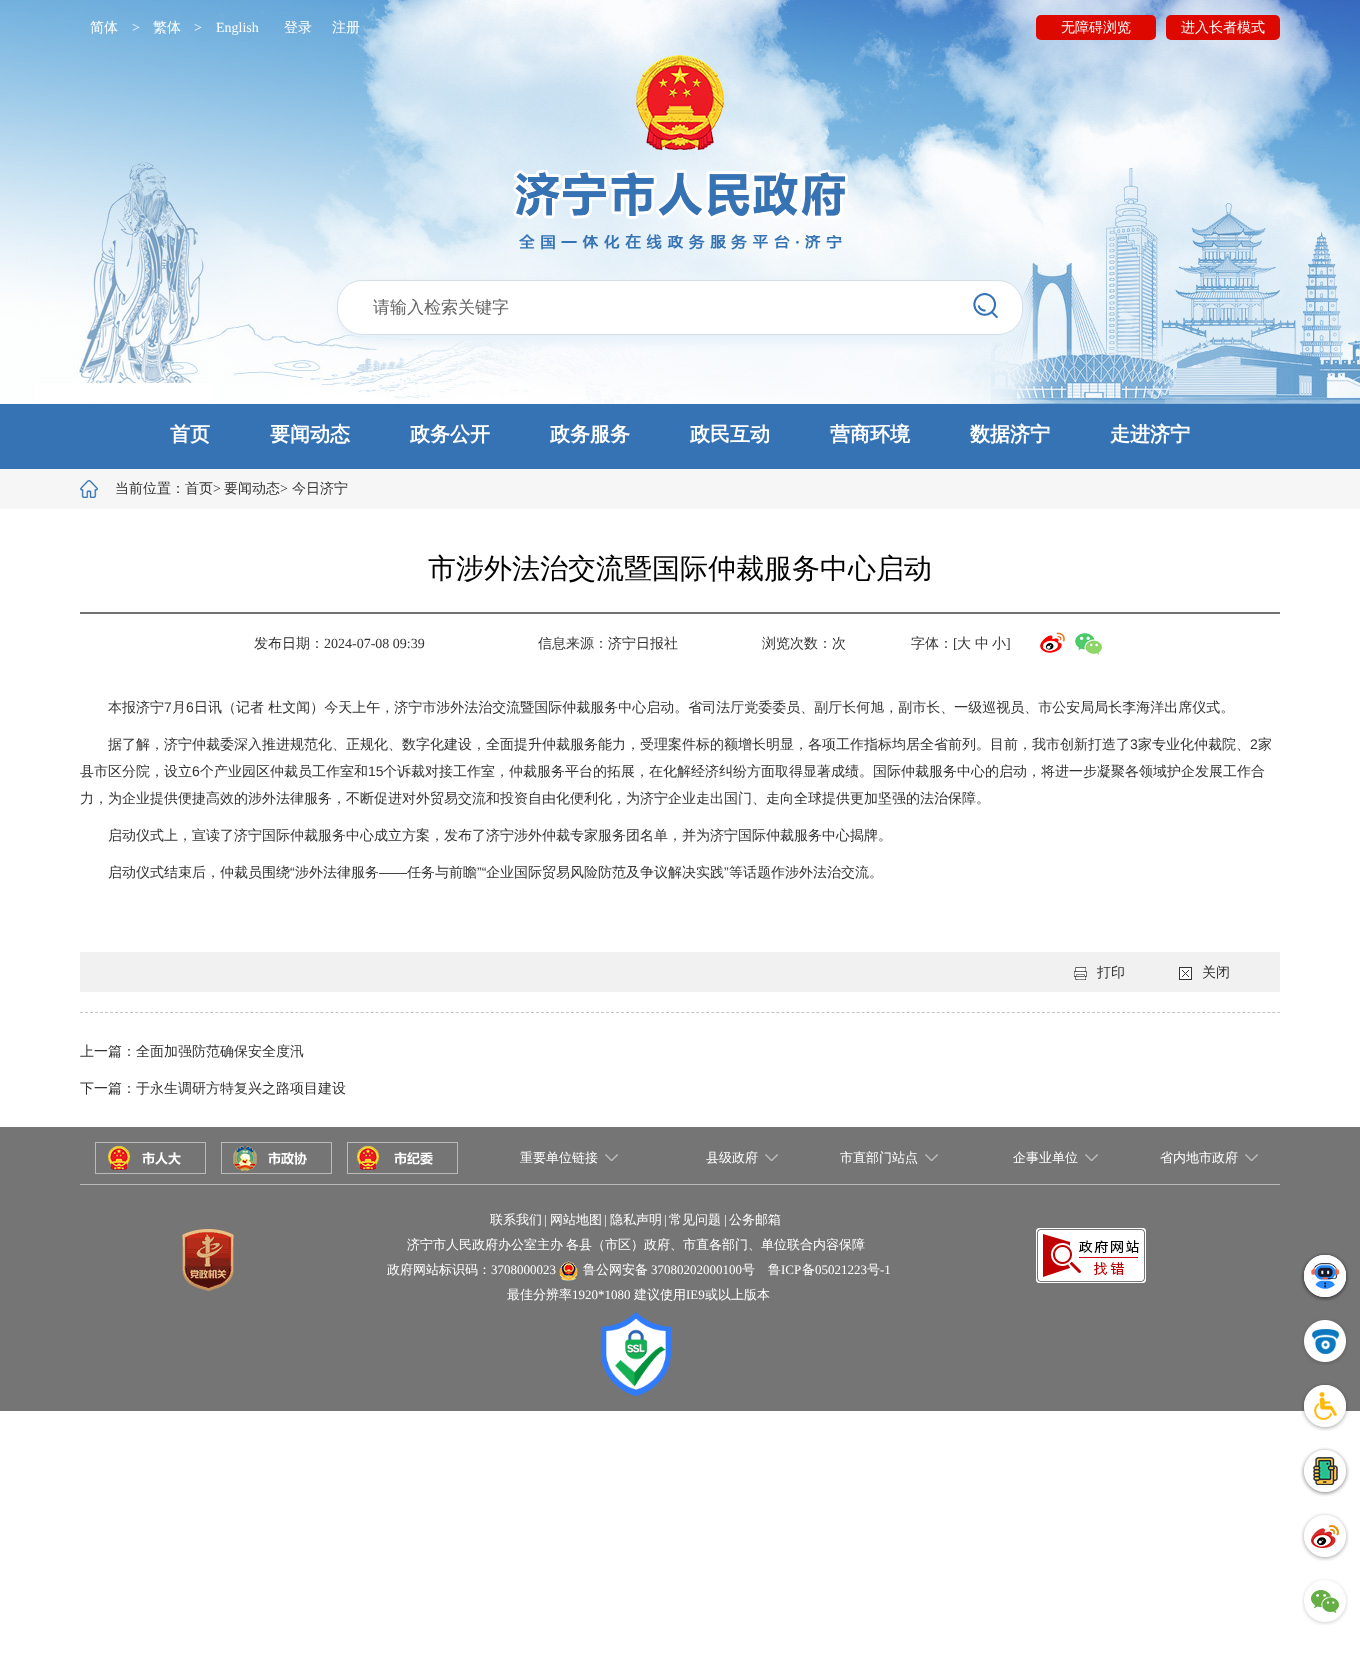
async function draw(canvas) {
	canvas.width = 1360;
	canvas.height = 1657;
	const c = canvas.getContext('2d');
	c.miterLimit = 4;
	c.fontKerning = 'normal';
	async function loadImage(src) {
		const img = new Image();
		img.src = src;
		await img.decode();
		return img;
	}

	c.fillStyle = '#fff';
	c.fillRect(0, 0, 1360, 1657);
	c.drawImage(await loadImage('img1.png'), 0, 0, 1360, 404);
	c.font = '500 14px WenQuanYi Zen Hei';
	c.fillText('简体', 90, 32);
	c.font = '14px Liberation Serif';
	c.fillText('>', 132, 32);
	c.font = '500 14px WenQuanYi Zen Hei';
	c.fillText('繁体', 153, 32);
	c.font = '14px Liberation Serif';
	c.fillText('>', 194, 32);
	c.fillText('English', 216, 32);
	c.font = '500 14px WenQuanYi Zen Hei';
	c.fillText('登录', 284, 32);
	c.fillText('注册', 332, 32);
	c.fillStyle = '#dd0900';
	c.beginPath();
	c.roundRect(1036, 15, 120, 25, 5);
	c.fill();
	c.fillStyle = '#fff';
	c.fillText('无障碍浏览', 1061, 32);
	c.fillStyle = '#dd0900';
	c.beginPath();
	c.roundRect(1166, 15, 114, 25, 5);
	c.fill();
	c.fillStyle = '#fff';
	c.fillText('进入长者模式', 1181, 32);
	c.drawImage(await loadImage('img2.png'), 636, 55, 88, 95);
	c.drawImage(await loadImage('img3.png'), 512, 170, 336, 80);
	c.fillStyle = '#e6f1f9';
	c.filter = 'blur(5px)';
	c.beginPath();
	c.roundRect(339, 282, 692, 61, 28);
	c.fill();
	c.filter = 'none';
	c.fillStyle = '#fff';
	c.beginPath();
	c.roundRect(337.5, 280.5, 685, 54, 24.5);
	c.fill();
	c.strokeStyle = '#d4dfe8';
	c.stroke();
	c.font = '500 17px WenQuanYi Zen Hei';
	c.fillStyle = '#666';
	c.fillText('请输入检索关键字', 373, 313);
	c.drawImage(await loadImage('img4.png'), 973, 293, 25, 25);
	c.fillStyle = '#3573b5';
	c.fillRect(0, 404, 1360, 65);
	c.font = 'bold 20px WenQuanYi Zen Hei';
	c.fillStyle = '#fff';
	for (const [text, x, y] of [
		['首页', 170, 441],
		['要闻动态', 270, 441],
		['政务公开', 410, 441],
		['政务服务', 550, 441],
		['政民互动', 690, 441],
		['营商环境', 830, 441],
		['数据济宁', 970, 441],
		['走进济宁', 1110, 441],
	]) {
		c.fillText(text, x, y);
	}
	c.fillStyle = '#f6f6f6';
	c.fillRect(0, 469, 1360, 40);
	c.drawImage(await loadImage('img5.png'), 80, 480, 18, 18);
	c.font = '500 14px WenQuanYi Zen Hei';
	c.fillStyle = '#333';
	c.fillText('当前位置：首页', 115, 493);
	c.font = '14px Liberation Serif';
	c.fillText('>', 213, 493);
	c.font = '500 14px WenQuanYi Zen Hei';
	c.fillText('要闻动态', 224, 493);
	c.font = '14px Liberation Serif';
	c.fillText('>', 280, 493);
	c.font = '500 14px WenQuanYi Zen Hei';
	c.fillText('今日济宁', 292, 493);
	c.fillStyle = '#717171';
	c.fillRect(80, 612, 1200, 2);
	c.font = '500 28px WenQuanYi Zen Hei';
	c.fillStyle = '#000';
	c.fillText('市涉外法治交流暨国际仲裁服务中心启动', 428, 578);
	c.font = '500 14px WenQuanYi Zen Hei';
	c.fillStyle = '#333';
	c.fillText('发布日期：', 254, 648);
	c.font = '14px Liberation Serif';
	c.fillText('2024-07-08 09:39', 324, 648);
	c.font = '500 14px WenQuanYi Zen Hei';
	for (const [text, x, y] of [
		['信息来源：济宁日报社', 538, 648],
		['浏览次数：次', 762, 648],
		['字体：', 911, 648],
	]) {
		c.fillText(text, x, y);
	}
	c.font = '14px Liberation Serif';
	c.fillText('[', 953, 648);
	c.font = '500 14px WenQuanYi Zen Hei';
	for (const [text, x, y] of [
		['大', 957, 648],
		['中', 975, 648],
		['小', 992, 648],
	]) {
		c.fillText(text, x, y);
	}
	c.font = '14px Liberation Serif';
	c.fillText(']', 1006, 648);
	c.drawImage(await loadImage('img6.png'), 1040, 632, 25, 21);
	c.drawImage(await loadImage('img7.png'), 1075, 633, 27, 22);
	c.font = '500 14px WenQuanYi Zen Hei';
	c.fillText('本报济宁', 108, 712);
	c.font = '14px Liberation Sans';
	c.fillText('7', 164, 712);
	c.font = '500 14px WenQuanYi Zen Hei';
	c.fillText('月', 172, 712);
	c.font = '14px Liberation Sans';
	c.fillText('6', 186, 712);
	c.font = '500 14px WenQuanYi Zen Hei';
	c.fillText('日讯（记者 杜文闻）今天上午，济宁市涉外法治交流暨国际仲裁服务中心启动。省司法厅党委委员、副厅长何旭，副市长、一级巡视员、市公安局局长李海洋出席仪式。', 194, 712);
	c.fillText('据了解，济宁仲裁委深入推进规范化、正规化、数字化建设，全面提升仲裁服务能力，受理案件标的额增长明显，各项工作指标均居全省前列。目前，我市创新打造了', 108, 749);
	c.font = '14px Liberation Sans';
	c.fillText('3', 1130, 749);
	c.font = '500 14px WenQuanYi Zen Hei';
	c.fillText('家专业化仲裁院、', 1138, 749);
	c.font = '14px Liberation Sans';
	c.fillText('2', 1250, 749);
	c.font = '500 14px WenQuanYi Zen Hei';
	c.fillText('家', 1258, 749);
	c.fillText('县市区分院，设立', 80, 776);
	c.font = '14px Liberation Sans';
	c.fillText('6', 192, 776);
	c.font = '500 14px WenQuanYi Zen Hei';
	c.fillText('个产业园区仲裁员工作室和', 200, 776);
	c.font = '14px Liberation Sans';
	c.fillText('15', 368, 776);
	c.font = '500 14px WenQuanYi Zen Hei';
	for (const [text, x, y] of [
		['个诉裁对接工作室，仲裁服务平台的拓展，在化解经济纠纷方面取得显著成绩。国际仲裁服务中心的启动，将进一步凝聚各领域护企发展工作合', 383, 776],
		['力，为企业提供便捷高效的涉外法律服务，不断促进对外贸易交流和投资自由化便利化，为济宁企业走出国门、走向全球提供更加坚强的法治保障。', 80, 803],
		['启动仪式上，宣读了济宁国际仲裁服务中心成立方案，发布了济宁涉外仲裁专家服务团名单，并为济宁国际仲裁服务中心揭牌。', 108, 840],
		['启动仪式结束后，仲裁员围绕', 108, 877],
	]) {
		c.fillText(text, x, y);
	}
	c.font = '14px Liberation Sans';
	c.fillText('“', 290, 877);
	c.font = '500 14px WenQuanYi Zen Hei';
	c.fillText('涉外法律服务', 295, 877);
	c.font = '14px Liberation Sans';
	c.fillText('——', 379, 877);
	c.font = '500 14px WenQuanYi Zen Hei';
	c.fillText('任务与前瞻', 407, 877);
	c.font = '14px Liberation Sans';
	c.fillText('”“', 477, 877);
	c.font = '500 14px WenQuanYi Zen Hei';
	c.fillText('企业国际贸易风险防范及争议解决实践', 486, 877);
	c.font = '14px Liberation Sans';
	c.fillText('”', 724, 877);
	c.font = '500 14px WenQuanYi Zen Hei';
	c.fillText('等话题作涉外法治交流。', 729, 877);
	c.fillStyle = '#f1f1f1';
	c.fillRect(80, 952, 1200, 40);
	c.drawImage(await loadImage('img8.png'), 1074, 967, 13, 13);
	c.fillStyle = '#333';
	c.fillText('打印', 1097, 977);
	c.drawImage(await loadImage('img9.png'), 1179, 967, 13, 13);
	c.fillText('关闭', 1202, 977);
	c.beginPath();
	c.moveTo(80, 1012.5);
	c.lineTo(1280, 1012.5);
	c.strokeStyle = '#c5c5c5';
	c.setLineDash([3, 2.01]);
	c.stroke();
	c.fillText('上一篇：全面加强防范确保安全度汛', 80, 1056);
	c.fillText('下一篇：于永生调研方特复兴之路项目建设', 80, 1093);
	c.fillStyle = '#757575';
	c.fillRect(0, 1127, 1360, 284);
	c.drawImage(await loadImage('img10.png'), 95, 1142, 111, 32);
	c.drawImage(await loadImage('img11.png'), 221, 1142, 111, 32);
	c.drawImage(await loadImage('img12.png'), 347, 1142, 111, 32);
	c.drawImage(await loadImage('img13.png'), 605, 1154, 13, 7);
	c.font = '500 13px WenQuanYi Zen Hei';
	c.fillStyle = '#fff';
	c.fillText('重要单位链接', 520, 1162);
	c.drawImage(await loadImage('img13.png'), 765, 1154, 13, 7);
	c.fillText('县级政府', 706, 1162);
	c.drawImage(await loadImage('img13.png'), 925, 1154, 13, 7);
	c.fillText('市直部门站点', 840, 1162);
	c.drawImage(await loadImage('img13.png'), 1085, 1154, 13, 7);
	c.fillText('企事业单位', 1013, 1162);
	c.drawImage(await loadImage('img13.png'), 1245, 1154, 13, 7);
	c.fillText('省内地市政府', 1160, 1162);
	c.fillStyle = '#bababa';
	c.fillRect(80, 1184, 1200, 1);
	c.drawImage(await loadImage('img14.png'), 182, 1229, 52, 63);
	c.fillStyle = '#fff';
	c.fillText('联系我们', 490, 1224);
	c.font = '13px Liberation Serif';
	c.fillText('|', 544, 1224);
	c.font = '500 13px WenQuanYi Zen Hei';
	c.fillText('网站地图', 550, 1224);
	c.font = '13px Liberation Serif';
	c.fillText('|', 604, 1224);
	c.font = '500 13px WenQuanYi Zen Hei';
	c.fillText('隐私声明', 610, 1224);
	c.font = '13px Liberation Serif';
	c.fillText('|', 664, 1224);
	c.font = '500 13px WenQuanYi Zen Hei';
	c.fillText('常见问题', 669, 1224);
	c.font = '13px Liberation Serif';
	c.fillText('|', 724, 1224);
	c.font = '500 13px WenQuanYi Zen Hei';
	c.fillText('公务邮箱', 729, 1224);
	c.wordSpacing = '-1px';
	c.fillText('济宁市人民政府办公室主办 各县（市区）政府、市直各部门、单位联合内容保障', 407, 1249);
	c.wordSpacing = '0px';
	c.fillText('政府网站标识码：', 387, 1274);
	c.font = '13px Liberation Serif';
	c.fillText('3708000023', 491, 1274);
	c.drawImage(await loadImage('img15.png'), 559, 1261, 19, 20);
	c.font = '500 13px WenQuanYi Zen Hei';
	c.fillText('鲁公网安备', 583, 1274);
	c.font = '13px Liberation Serif';
	c.fillText('37080202000100', 651, 1274);
	c.font = '500 13px WenQuanYi Zen Hei';
	c.fillText('号', 742, 1274);
	c.fillText('鲁', 768, 1274);
	c.font = '13px Liberation Serif';
	c.fillText('ICP', 781, 1274);
	c.font = '500 13px WenQuanYi Zen Hei';
	c.fillText('备', 802, 1274);
	c.font = '13px Liberation Serif';
	c.fillText('05021223', 815, 1274);
	c.font = '500 13px WenQuanYi Zen Hei';
	c.fillText('号', 867, 1274);
	c.font = '13px Liberation Serif';
	c.fillText('-1', 880, 1274);
	c.font = '500 13px WenQuanYi Zen Hei';
	c.fillText('最佳分辨率', 507, 1299);
	c.font = '13px Liberation Serif';
	c.fillText('1920*1080', 572, 1299);
	c.font = '500 13px WenQuanYi Zen Hei';
	c.fillText('建议使用', 634, 1299);
	c.font = '13px Liberation Serif';
	c.fillText('IE9', 686, 1299);
	c.font = '500 13px WenQuanYi Zen Hei';
	c.fillText('或以上版本', 705, 1299);
	c.drawImage(await loadImage('img16.png'), 601, 1312, 70, 84);
	c.drawImage(await loadImage('img17.png'), 1036, 1228, 110, 55);
	c.drawImage(await loadImage('img18.png'), 1301, 1253, 48, 48);
	c.drawImage(await loadImage('img19.png'), 1302, 1319, 46, 46);
	c.drawImage(await loadImage('img20.png'), 1301, 1383, 48, 48);
	c.drawImage(await loadImage('img21.png'), 1300, 1447, 50, 50);
	c.drawImage(await loadImage('img22.png'), 1301, 1513, 48, 48);
	c.drawImage(await loadImage('img23.png'), 1302, 1579, 46, 46);
}

draw(document.querySelector('canvas'));
